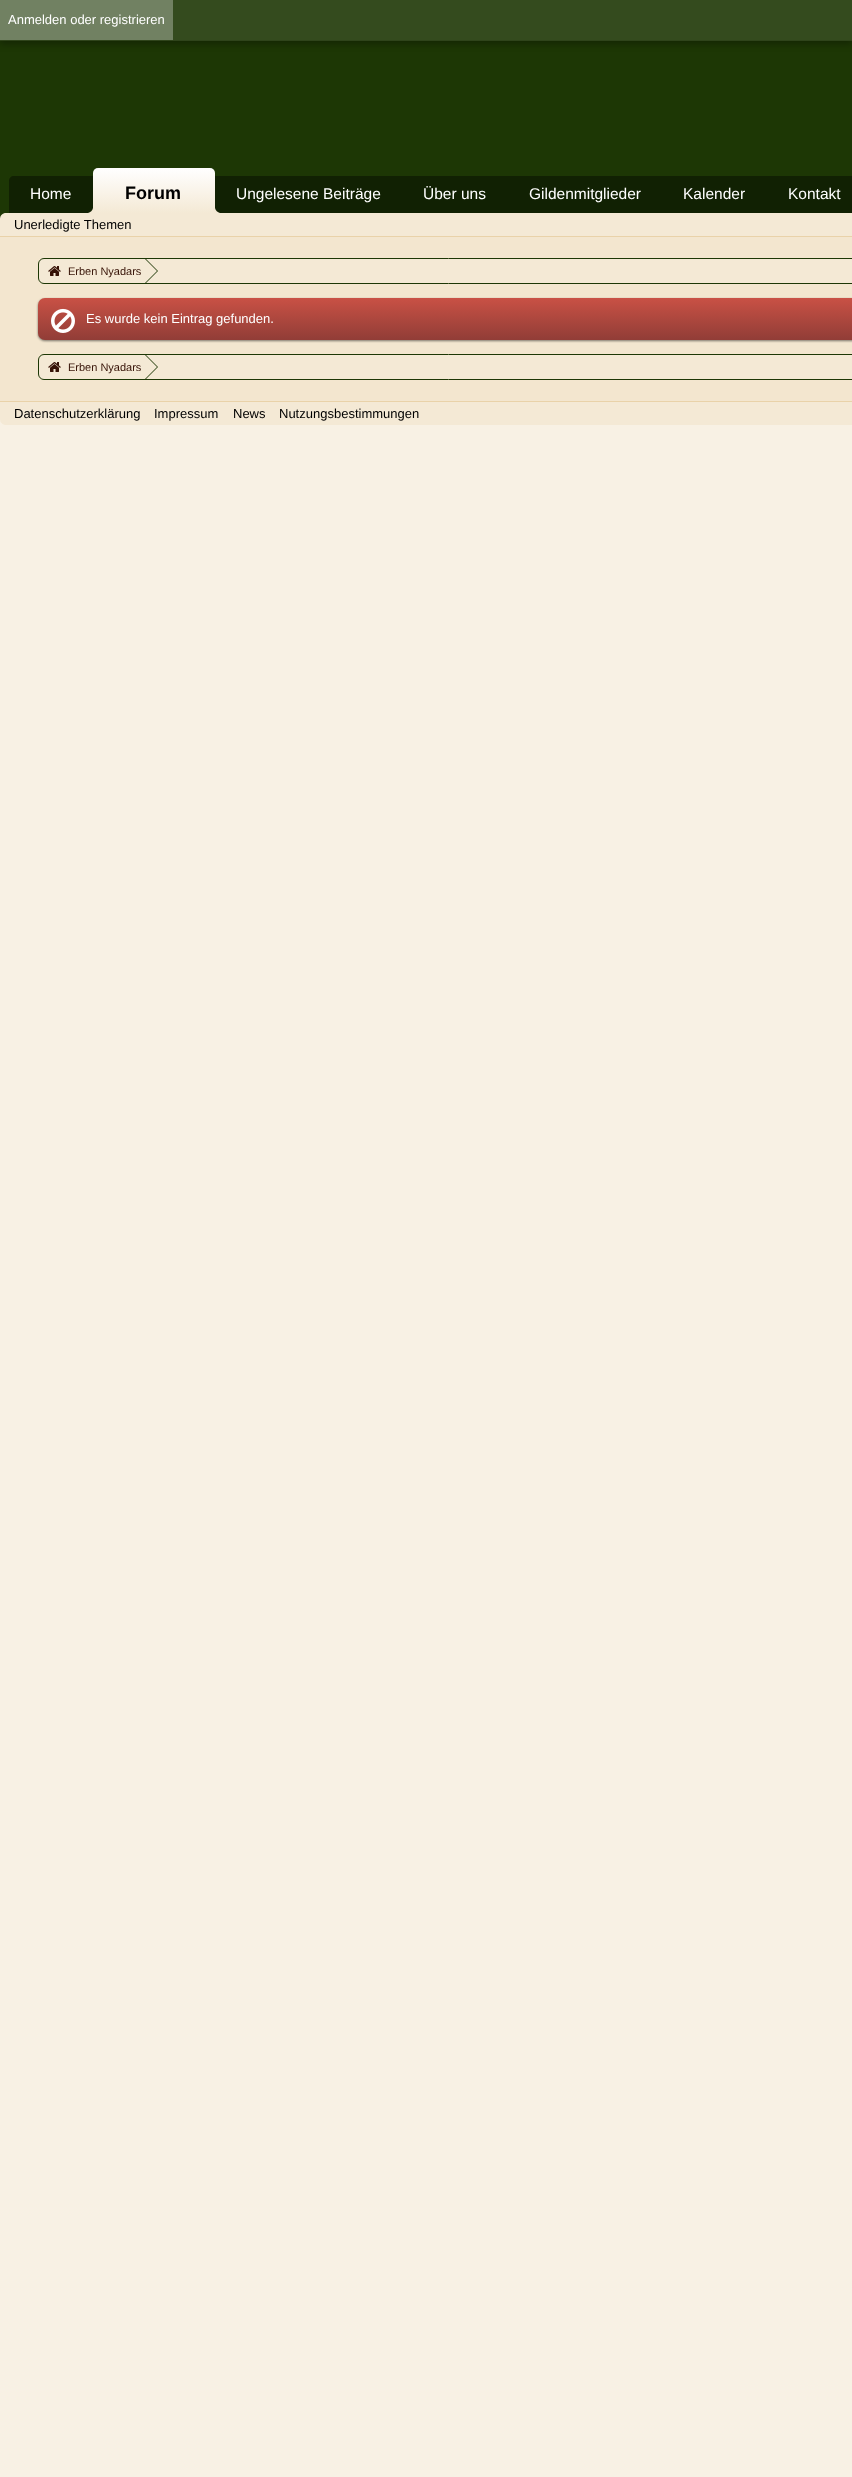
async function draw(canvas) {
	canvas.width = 852;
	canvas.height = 2477;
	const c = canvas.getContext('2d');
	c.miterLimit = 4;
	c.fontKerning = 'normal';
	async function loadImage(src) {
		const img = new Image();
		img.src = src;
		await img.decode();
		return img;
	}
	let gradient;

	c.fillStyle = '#f8f1e4';
	c.fillRect(0, 0, 852, 2477);
	c.fillStyle = '#1d3705';
	c.fillRect(0, 41, 852, 178);
	c.fillStyle = '#0000004d';
	c.filter = 'blur(3.5px)';
	c.beginPath();
	c.rect(0, 3, 852, 41);
	c.fill();
	c.filter = 'none';
	for (const [x, y, w, h, color] of [
		[173, 0, 679, 40, '#344b1e'],
		[0, 40, 852, 1, '#2f441b'],
		[0, 0, 173, 40, '#718162'],
	]) {
		c.fillStyle = color;
		c.fillRect(x, y, w, h);
	}
	c.font = '13px Liberation Sans';
	c.fillStyle = '#fff';
	c.fillText('Anmelden oder registrieren', 8, 24);
	c.fillStyle = '#112103';
	c.beginPath();
	c.moveTo(14, 176);
	c.lineTo(852, 176);
	c.bezierCurveTo(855, 176, 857, 178, 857, 181);
	c.lineTo(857, 213);
	c.lineTo(9, 213);
	c.lineTo(9, 181);
	c.bezierCurveTo(9, 178, 11, 176, 14, 176);
	c.closePath();
	c.fill();
	c.font = '15.5px Liberation Sans';
	c.fillStyle = '#fff';
	c.fillText('Home', 30, 199);
	gradient = c.createLinearGradient(154, 168, 154, 213);
	gradient.addColorStop(0, '#fff');
	gradient.addColorStop(1, '#f4e9d5');
	c.fillStyle = gradient;
	c.beginPath();
	c.roundRect(93, 168, 122, 45, [5, 5, 0, 0]);
	c.fill();
	c.font = 'bold 18px Liberation Sans';
	c.fillStyle = '#000';
	c.fillText('Forum', 125, 199);
	c.fillStyle = '#f4e9d5';
	c.beginPath();
	c.moveTo(6, 213);
	c.lineTo(852, 213);
	c.bezierCurveTo(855.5, 213, 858, 215.5, 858, 219);
	c.lineTo(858, 237);
	c.lineTo(0, 237);
	c.lineTo(0, 219);
	c.bezierCurveTo(0, 215.5, 2.5, 213, 6, 213);
	c.closePath();
	c.fill();
	c.beginPath();
	c.moveTo(88, 213);
	c.lineTo(88, 215);
	c.bezierCurveTo(92.5, 215, 95, 212.5, 95, 208);
	c.lineTo(93, 208);
	c.bezierCurveTo(92.5, 210.5, 90.5, 212.5, 88, 213);
	c.closePath();
	c.fill();
	c.beginPath();
	c.moveTo(213, 208);
	c.bezierCurveTo(213, 212.5, 215.5, 215, 220, 215);
	c.lineTo(220, 213);
	c.bezierCurveTo(217.5, 212.5, 215.5, 210.5, 215, 208);
	c.closePath();
	c.fill();
	c.font = '15.5px Liberation Sans';
	c.fillStyle = '#fff';
	for (const [text, x, y] of [
		['Ungelesene Beiträge', 236, 199],
		['Über uns', 423, 199],
		['Gildenmitglieder', 529, 199],
		['Kalender', 683, 199],
		['Kontakt', 788, 199],
	]) {
		c.fillText(text, x, y);
	}
	c.fillStyle = '#e9d2a9';
	c.fillRect(0, 236, 852, 1);
	c.font = '13px Liberation Sans';
	c.fillStyle = '#000';
	c.fillText('Unerledigte Themen', 14, 229);
	c.fillStyle = '#f3e6cf';
	c.fillRect(0, 237, 852, 164);
	c.fillStyle = '#f4e9d5';
	c.beginPath();
	c.roundRect(38.5, 258.5, 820, 25, 5.5);
	c.fill();
	c.strokeStyle = '#1d3705';
	c.stroke();
	c.drawImage(await loadImage('img1.png'), 48, 266, 13, 10);
	c.font = '11px Liberation Sans';
	c.fillStyle = '#361206';
	c.fillText('Erben Nyadars', 68, 275);
	c.fillStyle = '#1d3705';
	c.beginPath();
	c.moveTo(146, 259);
	c.lineTo(158, 271);
	c.lineTo(146, 283);
	c.lineTo(143, 283);
	c.lineTo(143, 259);
	c.closePath();
	c.fill();
	c.fillStyle = '#f4e9d5';
	c.beginPath();
	c.moveTo(145, 259);
	c.lineTo(157, 271);
	c.lineTo(145, 283);
	c.lineTo(142, 283);
	c.lineTo(142, 259);
	c.closePath();
	c.fill();
	c.fillStyle = '#00000080';
	c.filter = 'blur(1px)';
	c.beginPath();
	c.roundRect(38, 299, 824, 42, 7);
	c.fill();
	c.filter = 'none';
	gradient = c.createLinearGradient(600, 298, 600, 340);
	gradient.addColorStop(0, '#c95145');
	gradient.addColorStop(1, '#913d37');
	c.fillStyle = gradient;
	c.beginPath();
	c.roundRect(38, 298, 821, 42, 7);
	c.fill();
	c.drawImage(await loadImage('img2.png'), 51, 308, 24, 25);
	c.font = '13px Liberation Sans';
	c.fillStyle = '#fff';
	c.fillText('Es wurde kein Eintrag gefunden.', 86, 323);
	c.fillStyle = '#f4e9d5';
	c.beginPath();
	c.roundRect(38.5, 354.5, 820, 25, 5.5);
	c.fill();
	c.stroke();
	c.drawImage(await loadImage('img1.png'), 48, 362, 13, 10);
	c.font = '11px Liberation Sans';
	c.fillStyle = '#361206';
	c.fillText('Erben Nyadars', 68, 371);
	c.fillStyle = '#1d3705';
	c.beginPath();
	c.moveTo(146, 355);
	c.lineTo(158, 367);
	c.lineTo(146, 379);
	c.lineTo(143, 379);
	c.lineTo(143, 355);
	c.closePath();
	c.fill();
	c.fillStyle = '#f4e9d5';
	c.beginPath();
	c.moveTo(145, 355);
	c.lineTo(157, 367);
	c.lineTo(145, 379);
	c.lineTo(142, 379);
	c.lineTo(142, 355);
	c.closePath();
	c.fill();
	c.beginPath();
	c.moveTo(0, 401);
	c.lineTo(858, 401);
	c.lineTo(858, 419);
	c.bezierCurveTo(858, 422.5, 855.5, 425, 852, 425);
	c.lineTo(6, 425);
	c.bezierCurveTo(2.5, 425, 0, 422.5, 0, 419);
	c.closePath();
	c.fill();
	c.fillStyle = '#e9d2a9';
	c.fillRect(0, 401, 852, 1);
	c.font = '13px Liberation Sans';
	c.fillStyle = '#000';
	for (const [text, x, y] of [
		['Datenschutzerklärung', 14, 418],
		['Impressum', 154, 418],
		['News', 233, 418],
		['Nutzungsbestimmungen', 279, 418],
	]) {
		c.fillText(text, x, y);
	}
}

draw(document.querySelector('canvas'));
